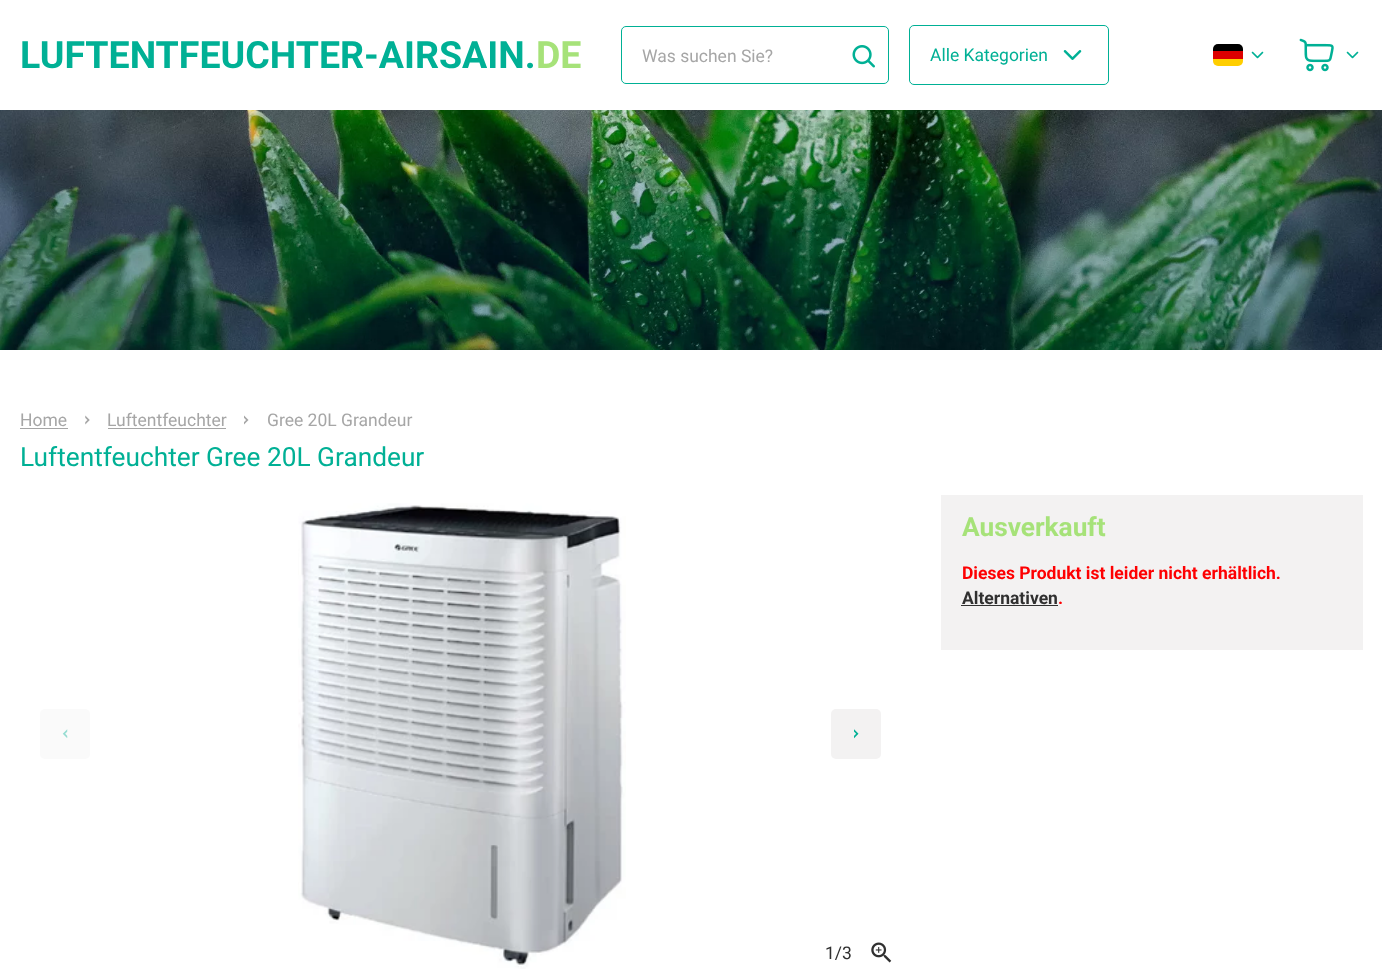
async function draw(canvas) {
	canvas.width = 1382;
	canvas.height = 970;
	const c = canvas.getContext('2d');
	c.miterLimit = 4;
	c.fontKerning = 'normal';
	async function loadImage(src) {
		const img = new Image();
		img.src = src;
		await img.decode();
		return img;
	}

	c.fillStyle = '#fff';
	c.fillRect(0, 0, 1382, 970);
	c.font = 'bold 37.5px Roboto';
	c.fillStyle = '#00b095';
	c.fillText('LUFTENTFEUCHTER-AIRSAIN.', 20, 68);
	c.fillStyle = '#a6e279';
	c.fillText('DE', 536, 68);
	c.beginPath();
	c.roundRect(621.5, 26.5, 267, 57, 4.5);
	c.strokeStyle = '#00b095';
	c.stroke();
	c.font = '17.5px Roboto';
	c.fillStyle = '#a6a6a6';
	c.fillText('Was suchen Sie?', 642, 62);
	c.drawImage(await loadImage('img1.png'), 852, 45, 23, 23);
	c.beginPath();
	c.roundRect(909.5, 25.5, 199, 59, 4.5);
	c.stroke();
	c.fillStyle = '#00b095';
	c.fillText('Alle Kategorien', 930, 61);
	c.drawImage(await loadImage('img2.png'), 1063, 50, 19, 10);
	c.fillStyle = '#ffce00';
	c.beginPath();
	c.roundRect(1213, 59, 30, 7, [0, 0, 5, 5]);
	c.fill();
	c.fillStyle = '#000';
	c.beginPath();
	c.roundRect(1213, 44, 30, 7, [5, 5, 0, 0]);
	c.fill();
	c.fillStyle = '#d00';
	c.fillRect(1213, 51, 30, 8);
	c.drawImage(await loadImage('img3.png'), 1251, 51, 13, 8);
	c.drawImage(await loadImage('img4.png'), 1299, 38, 35, 34);
	c.drawImage(await loadImage('img3.png'), 1346, 51, 13, 8);
	c.drawImage(await loadImage('img5.png'), 0, 110, 1382, 240);
	c.fillStyle = '#a6a6a6';
	c.fillText('Home', 20, 426);
	c.fillStyle = '#a5a5a5';
	c.fillRect(20, 428, 48, 1);
	c.drawImage(await loadImage('img6.png'), 85, 415, 5, 10);
	c.fillStyle = '#a6a6a6';
	c.fillText('Luftentfeuchter', 107, 426);
	c.fillStyle = '#a5a5a5';
	c.fillRect(108, 428, 118, 1);
	c.drawImage(await loadImage('img7.png'), 244, 415, 5, 10);
	c.fillStyle = '#a6a6a6';
	c.fillText('Gree 20L Grandeur', 267, 426);
	c.font = '26.25px Roboto';
	c.fillStyle = '#00b095';
	c.fillText('Luftentfeuchter Gree 20L Grandeur', 20, 466);
	c.fillStyle = '#f3f2f2';
	c.fillRect(941, 495, 422, 155);
	c.font = 'bold 26.25px Roboto';
	c.fillStyle = '#a6e279';
	c.fillText('Ausverkauft', 962, 536);
	c.font = 'bold 17.5px Roboto';
	c.fillStyle = '#fe0002';
	c.fillText('Dieses Produkt ist leider nicht erhältlich.', 962, 579);
	c.fillStyle = '#303030';
	c.fillText('Alternativen', 962, 604);
	c.fillRect(961, 605, 97, 1);
	c.fillStyle = '#fe0002';
	c.fillText('.', 1058, 604);
	c.fillStyle = '#fafafa';
	c.beginPath();
	c.roundRect(40, 709, 50, 50, 5);
	c.fill();
	c.drawImage(await loadImage('img8.png'), 62, 729, 6, 9);
	c.drawImage(await loadImage('img9.png'), 298, 503, 328, 466);
	c.fillStyle = '#f3f2f2';
	c.beginPath();
	c.roundRect(831, 709, 50, 50, 5);
	c.fill();
	c.drawImage(await loadImage('img10.png'), 854, 729, 5, 10);
	c.font = '17.5px Roboto';
	c.fillStyle = '#303030';
	c.fillText('1/3', 825, 959);
	c.drawImage(await loadImage('img11.png'), 871, 942, 21, 21);
}

draw(document.querySelector('canvas'));
